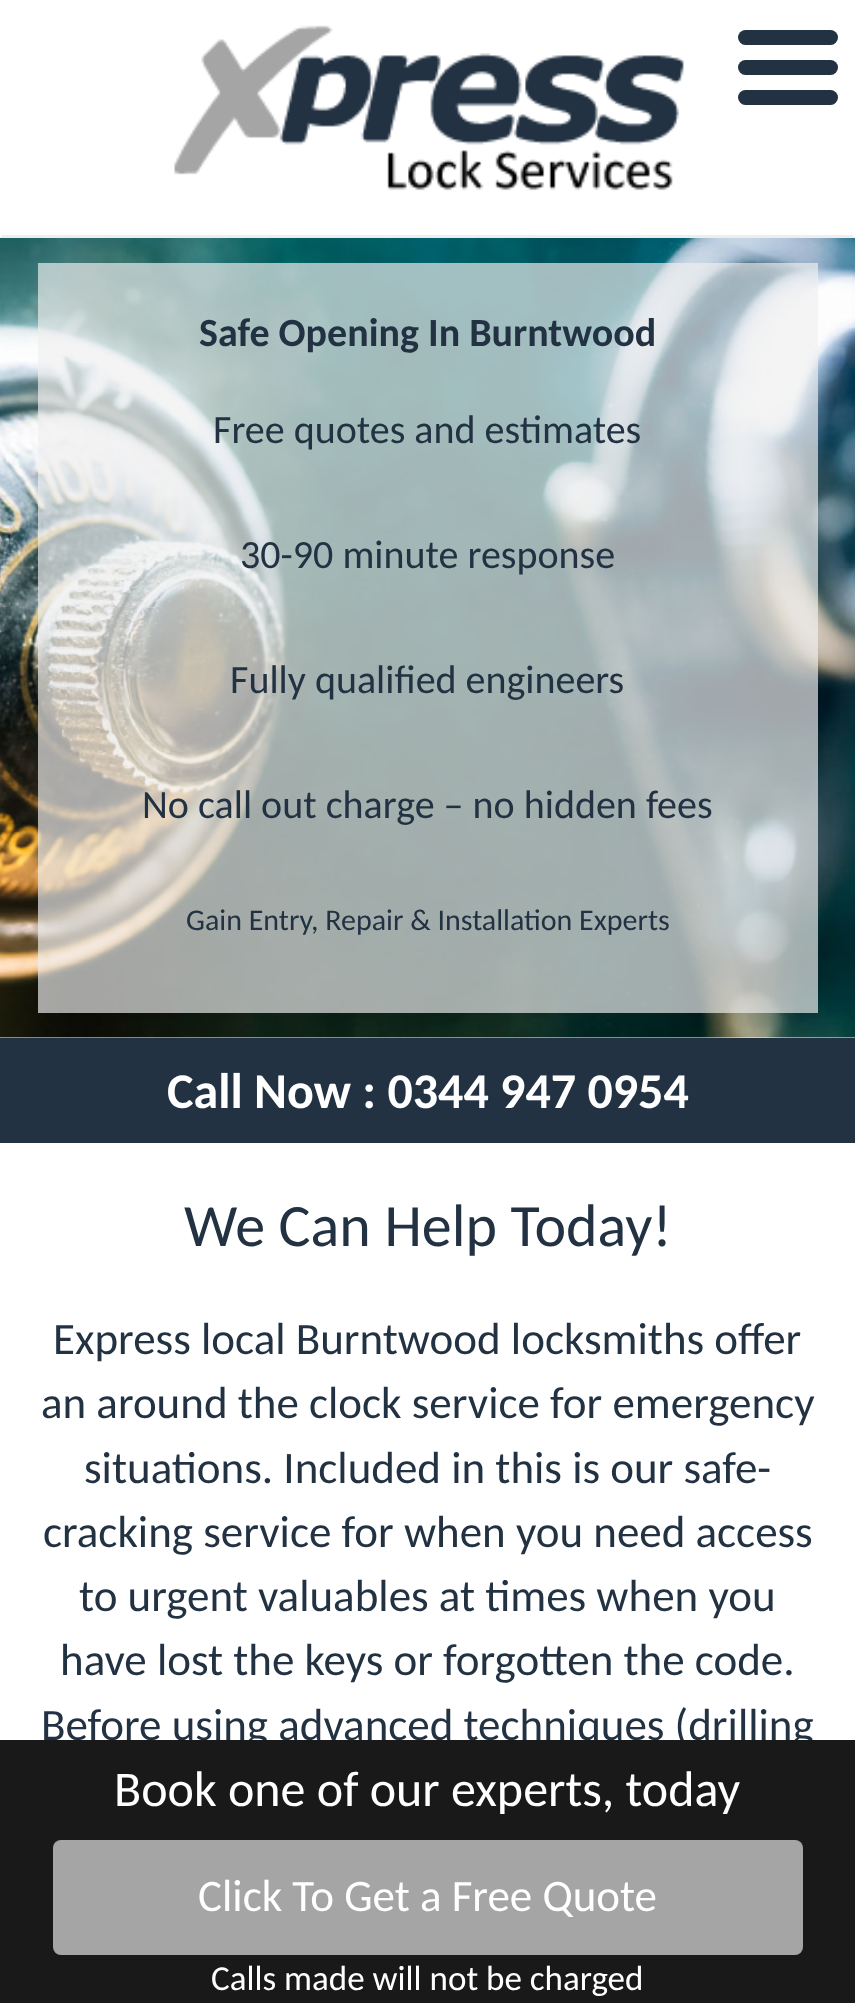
async function draw(canvas) {
	canvas.width = 855;
	canvas.height = 2003;
	const c = canvas.getContext('2d');
	c.miterLimit = 4;
	c.fontKerning = 'normal';
	async function loadImage(src) {
		const img = new Image();
		img.src = src;
		await img.decode();
		return img;
	}

	c.fillStyle = '#fff';
	c.fillRect(0, 0, 855, 2003);
	c.fillStyle = '#eee';
	c.beginPath();
	c.moveTo(855, 238);
	c.lineTo(0, 238);
	c.lineTo(2, 235);
	c.lineTo(852, 235);
	c.closePath();
	c.fill();
	c.drawImage(await loadImage('img1.png'), 174, 25, 510, 166);
	c.fillStyle = '#223243';
	c.beginPath();
	c.roundRect(738, 30, 100, 15, 7.5);
	c.fill();
	c.beginPath();
	c.roundRect(738, 60, 100, 15, 7.5);
	c.fill();
	c.beginPath();
	c.roundRect(738, 90, 100, 15, 7.5);
	c.fill();
	c.drawImage(await loadImage('img2.png'), 0, 238, 855, 800);
	c.fillStyle = '#efefefad';
	c.fillRect(38, 263, 780, 750);
	c.font = 'bold 40px Carlito';
	c.fillStyle = '#223243';
	c.fillText('Safe Opening In Burntwood', 199, 346);
	c.font = '40px Carlito';
	for (const [text, x, y] of [
		['Free quotes and estimates', 213, 443],
		['30-90 minute response', 240, 568],
		['Fully qualified engineers', 230, 693],
		['No call out charge – no hidden fees', 142, 818],
	]) {
		c.fillText(text, x, y);
	}
	c.font = '30px Carlito';
	c.fillText('Gain Entry, Repair & Installation Experts', 186, 930);
	c.fillRect(0, 1038, 855, 105);
	c.font = 'bold 50px Carlito';
	c.fillStyle = '#fff';
	c.fillText('Call Now : 0344 947 0954', 167, 1108);
	c.font = '60px Carlito';
	c.fillStyle = '#223243';
	c.fillText('We Can Help Today!', 184, 1246);
	c.font = '45px Carlito';
	for (const [text, x, y] of [
		['Express local Burntwood locksmiths offer', 53, 1354],
		['an around the clock service for emergency', 41, 1418],
		['situations. Included in this is our safe-', 84, 1483],
		['cracking service for when you need access', 43, 1547],
		['to urgent valuables at times when you', 79, 1611],
		['have lost the keys or forgotten the code.', 60, 1675],
		['Before using advanced techniques (drilling', 41, 1740],
	]) {
		c.fillText(text, x, y);
	}
	c.fillStyle = '#191919';
	c.fillRect(0, 1740, 855, 263);
	c.font = '50px Carlito';
	c.fillStyle = '#fff';
	c.fillText('Book one of our experts, today', 114, 1806);
	c.fillStyle = '#a5a5a5';
	c.beginPath();
	c.roundRect(53, 1840, 750, 115, 8);
	c.fill();
	c.font = '45px Carlito';
	c.fillStyle = '#fff';
	c.fillText('Click To Get a Free Quote', 198, 1911);
	c.font = '35px Carlito';
	c.fillText('Calls made will not be charged', 211, 1990);
}

draw(document.querySelector('canvas'));
